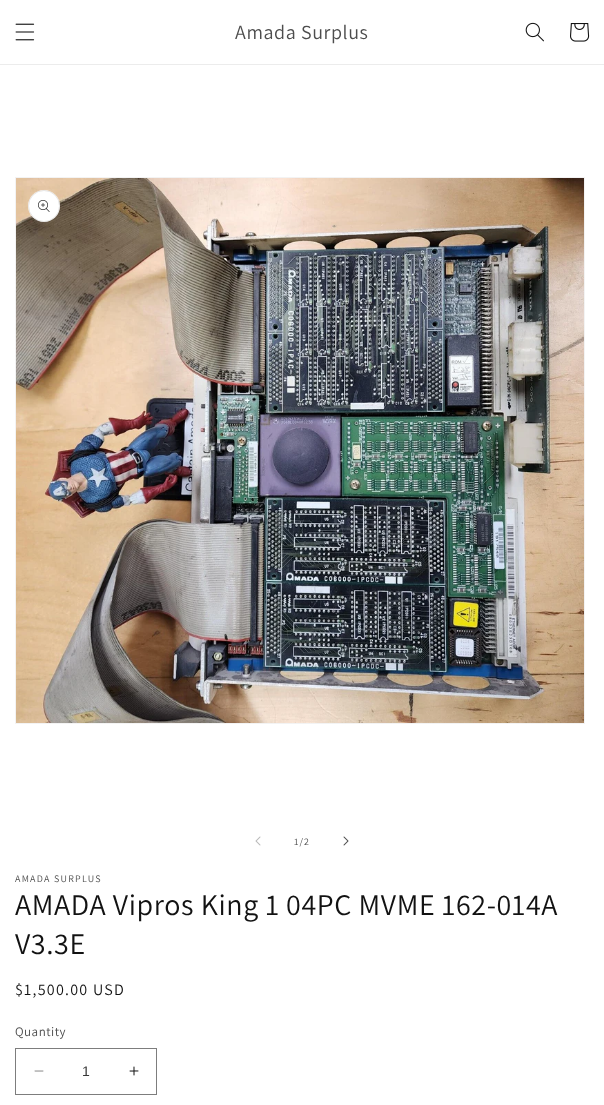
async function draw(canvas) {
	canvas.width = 604;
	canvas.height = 1105;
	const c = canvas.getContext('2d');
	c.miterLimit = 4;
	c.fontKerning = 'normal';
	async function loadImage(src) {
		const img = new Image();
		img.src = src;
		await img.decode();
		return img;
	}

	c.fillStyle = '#fff';
	c.fillRect(0, 0, 604, 1105);
	c.fillStyle = '#ececec';
	c.fillRect(0, 64, 604, 1);
	c.drawImage(await loadImage('img1.png'), 15, 23, 20, 18);
	c.letterSpacing = '0.6px';
	c.font = '20px Assistant';
	c.fillStyle = '#4d4d4d';
	c.fillText('Amada Surplus', 235, 39);
	c.drawImage(await loadImage('img2.png'), 525, 22, 19, 20);
	c.drawImage(await loadImage('img3.png'), 570, 23, 20, 19);
	c.strokeStyle = '#f3f3f3';
	c.strokeRect(15.5, 177.5, 569, 546);
	c.drawImage(await loadImage('img4.png'), 16, 178, 568, 545);
	c.fillStyle = '#fff';
	c.beginPath();
	c.arc(44, 206, 16, 0, 2 * Math.PI);
	c.fill();
	c.beginPath();
	c.arc(44, 206, 15.5, 0, 2 * Math.PI);
	c.strokeStyle = '#1212121a';
	c.stroke();
	c.drawImage(await loadImage('img5.png'), 38, 200, 12, 12);
	c.drawImage(await loadImage('img6.png'), 255, 836, 6, 10);
	c.letterSpacing = '1px';
	c.font = '10px Assistant';
	c.fillStyle = '#4d4d4d';
	c.fillText('1/2', 294, 845);
	c.drawImage(await loadImage('img7.png'), 343, 836, 6, 10);
	c.letterSpacing = '1.25px';
	c.fillText('AMADA SURPLUS', 15, 882);
	c.letterSpacing = '0.6px';
	c.font = '30px Assistant';
	c.fillStyle = '#121212';
	c.fillText('AMADA Vipros King 1 04PC MVME 162-014A', 15, 915);
	c.fillText('V3.3E', 15, 954);
	c.letterSpacing = '1.25px';
	c.font = '16px Assistant';
	c.fillText('$1,500.00 USD', 15, 995);
	c.letterSpacing = '0.5px';
	c.font = '13px Assistant';
	c.fillStyle = '#4d4d4d';
	c.fillText('Quantity', 15, 1036);
	c.drawImage(await loadImage('img8.png'), 34, 1070, 10, 2);
	c.drawImage(await loadImage('img9.png'), 129, 1066, 10, 10);
	c.strokeStyle = '#7d7d7d';
	c.strokeRect(15.5, 1048.5, 141, 46);
	c.letterSpacing = '0px';
	c.font = '14px Liberation Sans';
	c.fillStyle = '#363636';
	c.fillText('1', 82, 1076);
}

draw(document.querySelector('canvas'));
